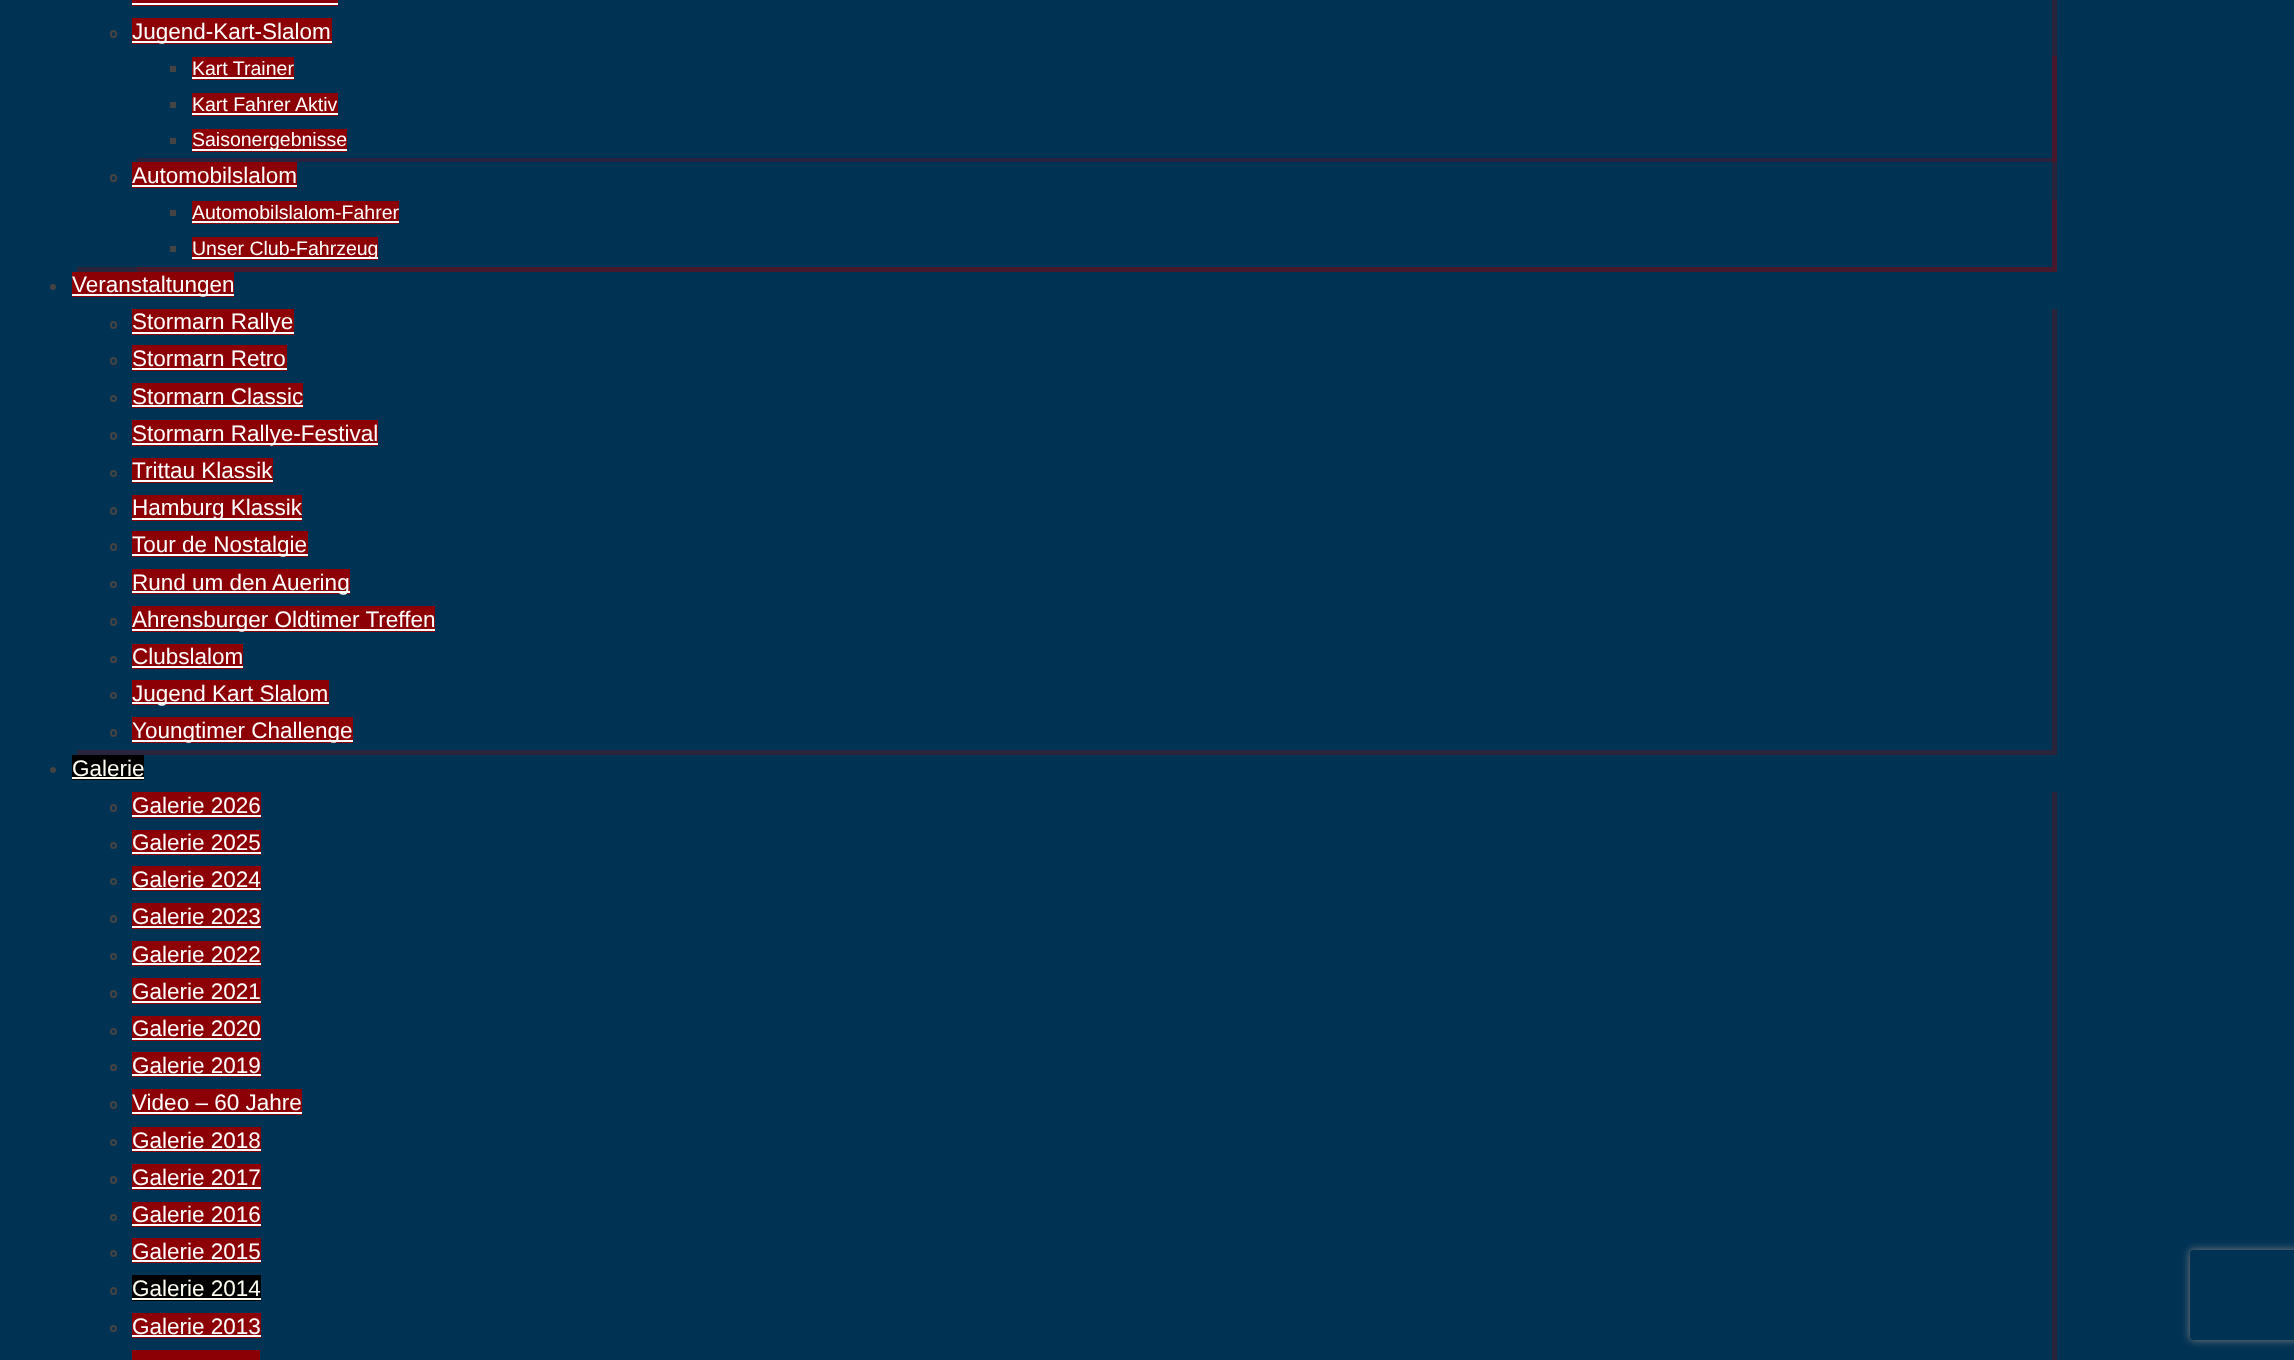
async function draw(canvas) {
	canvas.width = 2294;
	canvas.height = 1360;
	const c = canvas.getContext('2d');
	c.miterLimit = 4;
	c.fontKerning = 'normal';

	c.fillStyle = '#003254';
	c.fillRect(0, 0, 2294, 1360);
	c.fillStyle = '#2a233c';
	c.beginPath();
	c.moveTo(77, 267);
	c.lineTo(77, 272);
	c.lineTo(2057, 272);
	c.lineTo(2057, -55);
	c.lineTo(2052, -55);
	c.lineTo(2052, 267);
	c.closePath();
	c.fill();
	c.fillStyle = '#8c0005';
	c.fillRect(132, 0, 206, 6);
	c.fillStyle = '#fff';
	c.fillRect(132, 3, 206, 2);
	c.beginPath();
	c.roundRect(111, 31, 5, 6, 2.5);
	c.strokeStyle = '#444';
	c.lineWidth = 2;
	c.stroke();
	c.fillStyle = '#8c0005';
	c.fillRect(132, 18, 200, 26);
	c.fillStyle = '#fff';
	c.fillRect(132, 41, 200, 2);
	c.font = '22.5px Liberation Sans';
	c.fillText('Jugend-Kart-Slalom', 132, 39);
	c.fillStyle = '#8c00054d';
	c.beginPath();
	c.moveTo(137, 158);
	c.lineTo(137, 162);
	c.lineTo(2057, 162);
	c.lineTo(2057, 56);
	c.lineTo(2052, 56);
	c.lineTo(2052, 158);
	c.closePath();
	c.fill();
	c.fillStyle = '#444';
	c.fillRect(170, 66, 6, 6);
	c.fillStyle = '#8c0005';
	c.fillRect(192, 57, 102, 23);
	c.font = '19.5px Liberation Sans';
	c.fillStyle = '#fff';
	c.fillText('Kart Trainer', 192, 75);
	for (const [x, y, w, h, color] of [
		[192, 77, 102, 2, '#fff'],
		[170, 102, 6, 6, '#444'],
		[192, 93, 146, 23, '#8c0005'],
	]) {
		c.fillStyle = color;
		c.fillRect(x, y, w, h);
	}
	c.fillStyle = '#fff';
	c.fillText('Kart Fahrer Aktiv', 192, 111);
	for (const [x, y, w, h, color] of [
		[192, 113, 146, 2, '#fff'],
		[170, 138, 6, 6, '#444'],
		[192, 129, 155, 23, '#8c0005'],
		[192, 149, 155, 2, '#fff'],
	]) {
		c.fillStyle = color;
		c.fillRect(x, y, w, h);
	}
	c.fillText('Saisonergebnisse', 192, 146);
	c.beginPath();
	c.roundRect(111, 175, 5, 6, 2.5);
	c.stroke();
	c.fillStyle = '#8c0005';
	c.fillRect(132, 162, 165, 26);
	c.font = '22.5px Liberation Sans';
	c.fillStyle = '#fff';
	c.fillText('Automobilslalom', 132, 183);
	c.fillRect(132, 185, 165, 2);
	c.fillStyle = '#47192c';
	c.beginPath();
	c.moveTo(137, 267);
	c.lineTo(137, 272);
	c.lineTo(2057, 272);
	c.lineTo(2057, 200);
	c.lineTo(2052, 200);
	c.lineTo(2052, 267);
	c.closePath();
	c.fill();
	c.fillStyle = '#444';
	c.fillRect(170, 210, 6, 6);
	c.fillStyle = '#8c0005';
	c.fillRect(192, 201, 207, 23);
	c.font = '19.5px Liberation Sans';
	c.fillStyle = '#fff';
	c.fillText('Automobilslalom-Fahrer', 192, 219);
	for (const [x, y, w, h, color] of [
		[192, 221, 207, 2, '#fff'],
		[170, 246, 6, 6, '#444'],
		[192, 237, 186, 23, '#8c0005'],
		[192, 257, 186, 2, '#fff'],
	]) {
		c.fillStyle = color;
		c.fillRect(x, y, w, h);
	}
	c.fillText('Unser Club-Fahrzeug', 192, 255);
	c.fillStyle = '#444';
	c.beginPath();
	c.arc(53, 287, 3, 0, 2 * Math.PI);
	c.fill();
	c.fillStyle = '#8c0005';
	c.fillRect(72, 272, 162, 25);
	c.fillStyle = '#fff';
	c.fillRect(72, 294, 162, 2);
	c.font = '22.5px Liberation Sans';
	c.fillText('Veranstaltungen', 72, 292);
	c.fillStyle = '#2a233c';
	c.beginPath();
	c.moveTo(77, 750);
	c.lineTo(77, 755);
	c.lineTo(2057, 755);
	c.lineTo(2057, 309);
	c.lineTo(2052, 309);
	c.lineTo(2052, 750);
	c.closePath();
	c.fill();
	c.beginPath();
	c.roundRect(111, 322, 5, 6, 2.5);
	c.stroke();
	c.fillStyle = '#8c0005';
	c.fillRect(132, 309, 162, 26);
	c.fillStyle = '#fff';
	c.fillRect(132, 332, 162, 2);
	c.fillText('Stormarn Rallye', 132, 329);
	c.beginPath();
	c.roundRect(111, 358, 5, 6, 2.5);
	c.stroke();
	c.fillStyle = '#8c0005';
	c.fillRect(132, 345, 155, 26);
	c.fillStyle = '#fff';
	c.fillText('Stormarn Retro', 132, 366);
	c.fillRect(132, 368, 155, 2);
	c.beginPath();
	c.arc(113.5, 398.5, 2.5, 0, 2 * Math.PI);
	c.stroke();
	c.fillStyle = '#8c0005';
	c.fillRect(132, 383, 171, 25);
	c.fillStyle = '#fff';
	c.fillText('Stormarn Classic', 132, 404);
	c.fillRect(132, 405, 171, 2);
	c.beginPath();
	c.roundRect(111, 433, 5, 6, 2.5);
	c.stroke();
	c.fillStyle = '#8c0005';
	c.fillRect(132, 420, 246, 26);
	c.fillStyle = '#fff';
	c.fillRect(132, 443, 246, 2);
	c.fillText('Stormarn Rallye-Festival', 132, 441);
	c.beginPath();
	c.arc(113.5, 473.5, 2.5, 0, 2 * Math.PI);
	c.stroke();
	c.fillStyle = '#8c0005';
	c.fillRect(132, 458, 141, 25);
	c.fillStyle = '#fff';
	c.fillText('Trittau Klassik', 132, 478);
	c.fillRect(132, 480, 141, 2);
	c.beginPath();
	c.roundRect(111, 508, 5, 6, 2.5);
	c.stroke();
	c.fillStyle = '#8c0005';
	c.fillRect(132, 495, 170, 26);
	c.fillStyle = '#fff';
	c.fillRect(132, 518, 170, 2);
	c.fillText('Hamburg Klassik', 132, 515);
	c.beginPath();
	c.roundRect(111, 544, 5, 6, 2.5);
	c.stroke();
	c.fillStyle = '#8c0005';
	c.fillRect(132, 531, 176, 26);
	c.fillStyle = '#fff';
	c.fillRect(132, 554, 176, 2);
	c.fillText('Tour de Nostalgie', 132, 552);
	c.beginPath();
	c.arc(113.5, 584.5, 2.5, 0, 2 * Math.PI);
	c.stroke();
	c.fillStyle = '#8c0005';
	c.fillRect(132, 569, 218, 25);
	c.fillStyle = '#fff';
	c.fillRect(132, 591, 218, 2);
	c.fillText('Rund um den Auering', 132, 590);
	c.beginPath();
	c.roundRect(111, 619, 5, 6, 2.5);
	c.stroke();
	c.fillStyle = '#8c0005';
	c.fillRect(132, 606, 303, 26);
	c.fillStyle = '#fff';
	c.fillRect(132, 629, 303, 2);
	c.fillText('Ahrensburger Oldtimer Treffen', 132, 627);
	c.beginPath();
	c.arc(113.5, 659.5, 2.5, 0, 2 * Math.PI);
	c.stroke();
	c.fillStyle = '#8c0005';
	c.fillRect(132, 644, 111, 25);
	c.fillStyle = '#fff';
	c.fillText('Clubslalom', 132, 664);
	c.fillRect(132, 666, 111, 2);
	c.beginPath();
	c.arc(113.5, 695.5, 2.5, 0, 2 * Math.PI);
	c.stroke();
	c.fillStyle = '#8c0005';
	c.fillRect(132, 680, 197, 25);
	c.fillStyle = '#fff';
	c.fillRect(132, 702, 197, 2);
	c.fillText('Jugend Kart Slalom', 132, 701);
	c.beginPath();
	c.roundRect(111, 730, 5, 6, 2.5);
	c.stroke();
	c.fillStyle = '#8c0005';
	c.fillRect(132, 717, 221, 26);
	c.fillStyle = '#fff';
	c.fillRect(132, 740, 221, 2);
	c.fillText('Youngtimer Challenge', 132, 738);
	c.fillStyle = '#444';
	c.beginPath();
	c.arc(53, 770, 3, 0, 2 * Math.PI);
	c.fill();
	c.fillStyle = '#000';
	c.fillRect(72, 755, 72, 25);
	c.fillStyle = '#fefdf2';
	c.fillText('Galerie', 72, 776);
	c.fillRect(72, 777, 72, 2);
	c.fillStyle = '#2a233c';
	c.beginPath();
	c.moveTo(77, 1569);
	c.lineTo(77, 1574);
	c.lineTo(2057, 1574);
	c.lineTo(2057, 792);
	c.lineTo(2052, 792);
	c.lineTo(2052, 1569);
	c.closePath();
	c.fill();
	c.beginPath();
	c.roundRect(111, 805, 5, 6, 2.5);
	c.stroke();
	c.fillStyle = '#8c0005';
	c.fillRect(132, 792, 129, 26);
	c.fillStyle = '#fff';
	c.fillText('Galerie 2026', 132, 813);
	c.fillRect(132, 815, 129, 2);
	c.beginPath();
	c.arc(113.5, 845.5, 2.5, 0, 2 * Math.PI);
	c.stroke();
	c.fillStyle = '#8c0005';
	c.fillRect(132, 830, 129, 25);
	c.fillStyle = '#fff';
	c.fillText('Galerie 2025', 132, 850);
	c.fillRect(132, 852, 129, 2);
	c.beginPath();
	c.arc(113.5, 881.5, 2.5, 0, 2 * Math.PI);
	c.stroke();
	c.fillStyle = '#8c0005';
	c.fillRect(132, 866, 129, 25);
	c.fillStyle = '#fff';
	c.fillText('Galerie 2024', 132, 887);
	c.fillRect(132, 888, 129, 2);
	c.beginPath();
	c.roundRect(111, 916, 5, 6, 2.5);
	c.stroke();
	c.fillStyle = '#8c0005';
	c.fillRect(132, 903, 129, 26);
	c.fillStyle = '#fff';
	c.fillText('Galerie 2023', 132, 924);
	c.fillRect(132, 926, 129, 2);
	c.beginPath();
	c.arc(113.5, 956.5, 2.5, 0, 2 * Math.PI);
	c.stroke();
	c.fillStyle = '#8c0005';
	c.fillRect(132, 941, 129, 25);
	c.fillStyle = '#fff';
	c.fillText('Galerie 2022', 132, 962);
	c.fillRect(132, 963, 129, 2);
	c.beginPath();
	c.roundRect(111, 991, 5, 6, 2.5);
	c.stroke();
	c.fillStyle = '#8c0005';
	c.fillRect(132, 978, 129, 26);
	c.fillStyle = '#fff';
	c.fillText('Galerie 2021', 132, 999);
	c.fillRect(132, 1001, 129, 2);
	c.beginPath();
	c.arc(113.5, 1031.5, 2.5, 0, 2 * Math.PI);
	c.stroke();
	c.fillStyle = '#8c0005';
	c.fillRect(132, 1016, 129, 25);
	c.fillStyle = '#fff';
	c.fillText('Galerie 2020', 132, 1036);
	c.fillRect(132, 1038, 129, 2);
	c.beginPath();
	c.arc(113.5, 1067.5, 2.5, 0, 2 * Math.PI);
	c.stroke();
	c.fillStyle = '#8c0005';
	c.fillRect(132, 1052, 129, 25);
	c.fillStyle = '#fff';
	c.fillText('Galerie 2019', 132, 1073);
	c.fillRect(132, 1074, 129, 2);
	c.beginPath();
	c.roundRect(111, 1102, 5, 6, 2.5);
	c.stroke();
	c.fillStyle = '#8c0005';
	c.fillRect(132, 1089, 170, 26);
	c.fillStyle = '#fff';
	c.fillText('Video – 60 Jahre', 132, 1110);
	c.fillRect(132, 1112, 170, 2);
	c.beginPath();
	c.arc(113.5, 1142.5, 2.5, 0, 2 * Math.PI);
	c.stroke();
	c.fillStyle = '#8c0005';
	c.fillRect(132, 1127, 129, 25);
	c.fillStyle = '#fff';
	c.fillText('Galerie 2018', 132, 1148);
	c.fillRect(132, 1149, 129, 2);
	c.beginPath();
	c.roundRect(111, 1177, 5, 6, 2.5);
	c.stroke();
	c.fillStyle = '#8c0005';
	c.fillRect(132, 1164, 129, 26);
	c.fillStyle = '#fff';
	c.fillText('Galerie 2017', 132, 1185);
	c.fillRect(132, 1187, 129, 2);
	c.beginPath();
	c.arc(113.5, 1217.5, 2.5, 0, 2 * Math.PI);
	c.stroke();
	c.fillStyle = '#8c0005';
	c.fillRect(132, 1202, 129, 25);
	c.fillStyle = '#fff';
	c.fillText('Galerie 2016', 132, 1222);
	c.fillRect(132, 1224, 129, 2);
	c.beginPath();
	c.arc(113.5, 1253.5, 2.5, 0, 2 * Math.PI);
	c.stroke();
	c.fillStyle = '#8c0005';
	c.fillRect(132, 1238, 129, 25);
	c.fillStyle = '#fff';
	c.fillText('Galerie 2015', 132, 1259);
	c.fillRect(132, 1260, 129, 2);
	c.beginPath();
	c.roundRect(111, 1288, 5, 6, 2.5);
	c.stroke();
	c.fillStyle = '#000';
	c.fillRect(132, 1275, 129, 26);
	c.fillStyle = '#fefdf2';
	c.fillText('Galerie 2014', 132, 1296);
	c.fillRect(132, 1298, 129, 2);
	c.beginPath();
	c.arc(113.5, 1328.5, 2.5, 0, 2 * Math.PI);
	c.stroke();
	c.fillStyle = '#8c0005';
	c.fillRect(132, 1313, 129, 25);
	c.fillStyle = '#fff';
	c.fillText('Galerie 2013', 132, 1334);
	c.fillRect(132, 1335, 129, 2);
	c.fillStyle = '#8c0005';
	c.fillRect(132, 1350, 128, 10);
	c.save();
	c.beginPath();
	c.moveTo(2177, 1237);
	c.lineTo(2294, 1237);
	c.lineTo(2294, 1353);
	c.lineTo(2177, 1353);
	c.closePath();
	c.moveTo(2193, 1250);
	c.lineTo(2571, 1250);
	c.bezierCurveTo(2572.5, 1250, 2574, 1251.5, 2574, 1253);
	c.lineTo(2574, 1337);
	c.bezierCurveTo(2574, 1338.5, 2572.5, 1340, 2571, 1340);
	c.lineTo(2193, 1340);
	c.bezierCurveTo(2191.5, 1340, 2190, 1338.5, 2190, 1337);
	c.lineTo(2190, 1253);
	c.bezierCurveTo(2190, 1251.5, 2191.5, 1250, 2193, 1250);
	c.closePath();
	c.clip('evenodd');
	c.fillStyle = '#808080';
	c.filter = 'blur(4px)';
	c.beginPath();
	c.roundRect(2190, 1250, 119, 90, 3);
	c.fill();
	c.filter = 'none';
	c.restore();
}

draw(document.querySelector('canvas'));
